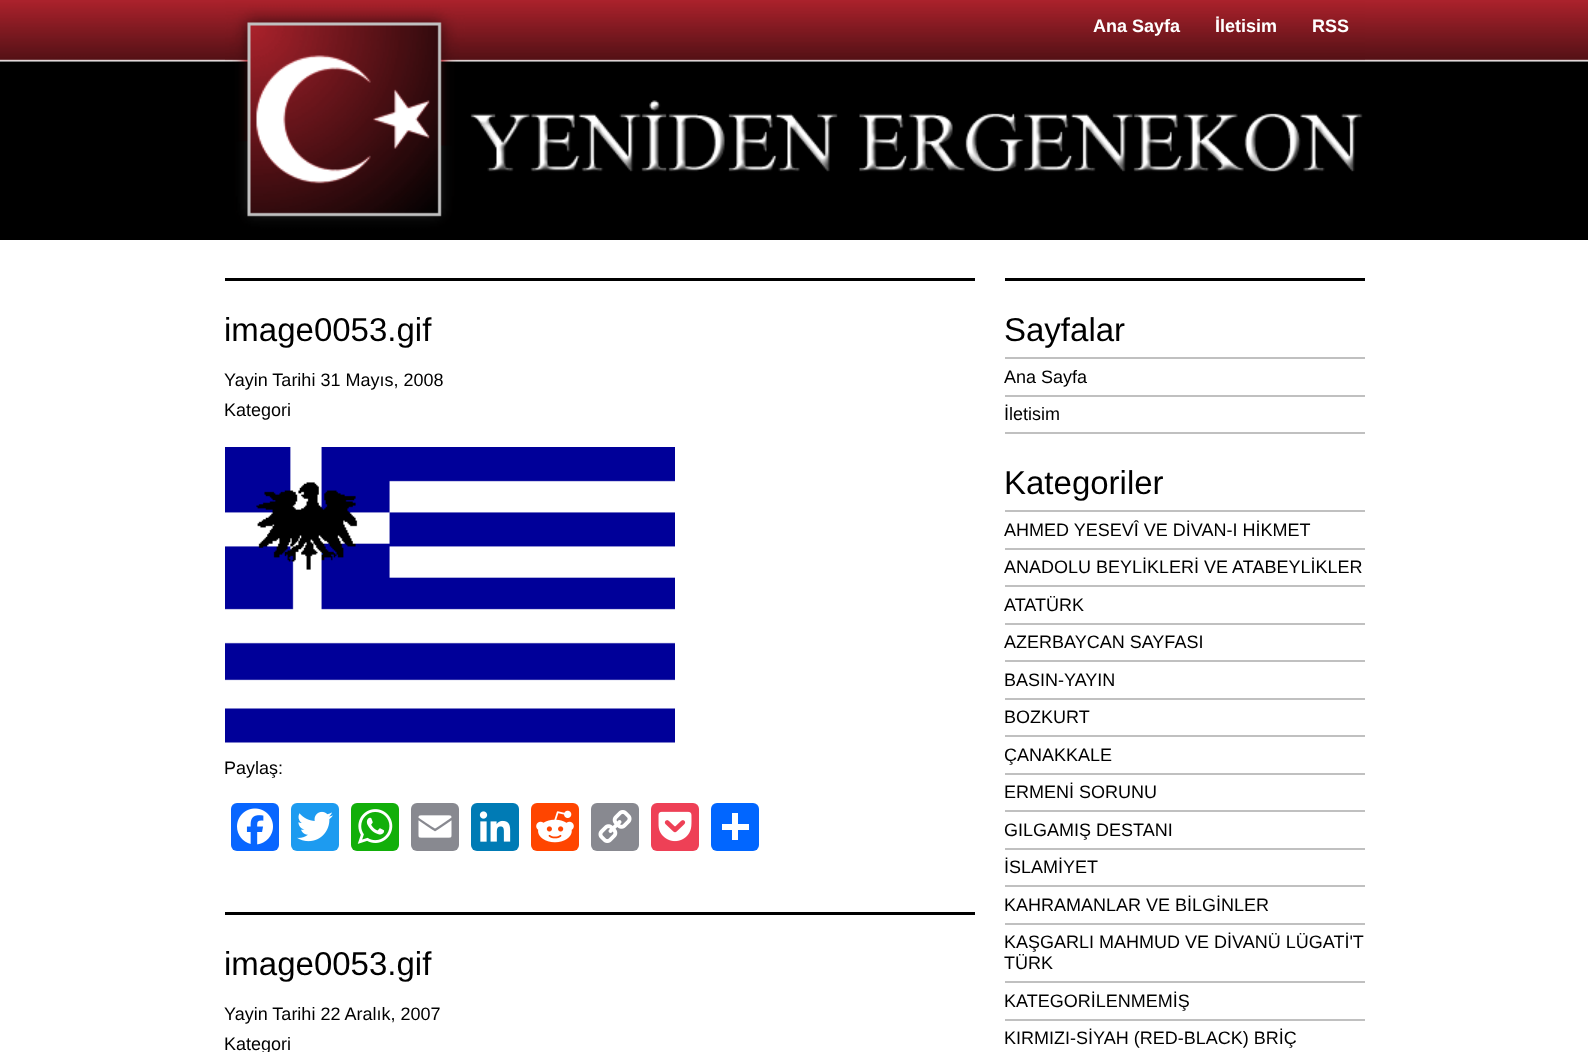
async function draw(canvas) {
	canvas.width = 1588;
	canvas.height = 1052;
	const c = canvas.getContext('2d');
	c.miterLimit = 4;
	c.fontKerning = 'normal';
	async function loadImage(src) {
		const img = new Image();
		img.src = src;
		await img.decode();
		return img;
	}

	c.fillStyle = '#fff';
	c.fillRect(0, 0, 1588, 1052);
	c.drawImage(await loadImage('img1.png'), 0, 0, 1588, 240);
	c.drawImage(await loadImage('img2.png'), 465, 0, 900, 240);
	c.drawImage(await loadImage('img3.png'), 225, 0, 240, 240);
	c.font = 'bold 18px Liberation Sans';
	for (const [text, x, y] of [
		['Ana Sayfa', 1093, 32],
		['İletisim', 1215, 32],
		['RSS', 1312, 32],
	]) {
		c.fillText(text, x, y);
	}
	c.fillStyle = '#000';
	c.fillRect(225, 278, 750, 3);
	c.font = '33px Liberation Sans';
	c.fillText('image0053.gif', 224, 341);
	c.font = '18px Liberation Sans';
	c.fillText('Yayin Tarihi 31 Mayıs, 2008', 224, 386);
	c.fillText('Kategori', 224, 416);
	c.drawImage(await loadImage('img4.png'), 225, 447, 450, 296);
	c.fillText('Paylaş:', 224, 774);
	c.fillStyle = '#0866ff';
	c.beginPath();
	c.roundRect(231, 803, 48, 48, 6);
	c.fill();
	c.drawImage(await loadImage('img5.png'), 237, 808, 36, 37);
	c.fillStyle = '#1d9bf0';
	c.beginPath();
	c.roundRect(291, 803, 48, 48, 6);
	c.fill();
	c.drawImage(await loadImage('img6.png'), 297, 811, 36, 31);
	c.fillStyle = '#12af0a';
	c.beginPath();
	c.roundRect(351, 803, 48, 48, 6);
	c.fill();
	c.drawImage(await loadImage('img7.png'), 357, 809, 36, 35);
	c.fillStyle = '#888990';
	c.beginPath();
	c.roundRect(411, 803, 48, 48, 6);
	c.fill();
	c.drawImage(await loadImage('img8.png'), 418, 815, 34, 23);
	c.fillStyle = '#007bb5';
	c.beginPath();
	c.roundRect(471, 803, 48, 48, 6);
	c.fill();
	c.drawImage(await loadImage('img9.png'), 479, 811, 32, 31);
	c.fillStyle = '#ff4500';
	c.beginPath();
	c.roundRect(531, 803, 48, 48, 6);
	c.fill();
	c.drawImage(await loadImage('img10.png'), 536, 810, 38, 33);
	c.fillStyle = '#888990';
	c.beginPath();
	c.roundRect(591, 803, 48, 48, 6);
	c.fill();
	c.drawImage(await loadImage('img11.png'), 598, 810, 34, 33);
	c.fillStyle = '#ee4056';
	c.beginPath();
	c.roundRect(651, 803, 48, 48, 6);
	c.fill();
	c.drawImage(await loadImage('img12.png'), 658, 811, 34, 31);
	c.fillStyle = '#0166ff';
	c.beginPath();
	c.roundRect(711, 803, 48, 48, 6);
	c.fill();
	for (const [x, y, w, h, color] of [
		[732, 813, 6, 27, '#fff'],
		[722, 824, 27, 6, '#fff'],
		[225, 912, 750, 3, '#000'],
	]) {
		c.fillStyle = color;
		c.fillRect(x, y, w, h);
	}
	c.font = '33px Liberation Sans';
	c.fillText('image0053.gif', 224, 975);
	c.font = '18px Liberation Sans';
	c.fillText('Yayin Tarihi 22 Aralık, 2007', 224, 1020);
	c.fillText('Kategori', 224, 1050);
	c.fillRect(1005, 278, 360, 3);
	c.fillStyle = '#c0c0c0';
	c.fillRect(1005, 357, 360, 2);
	c.font = '33px Liberation Sans';
	c.fillStyle = '#000';
	c.fillText('Sayfalar', 1004, 341);
	c.fillStyle = '#c0c0c0';
	c.fillRect(1005, 395, 360, 2);
	c.font = '18px Liberation Sans';
	c.fillStyle = '#000';
	c.fillText('Ana Sayfa', 1004, 383);
	c.fillStyle = '#c0c0c0';
	c.fillRect(1005, 432, 360, 2);
	c.fillStyle = '#000';
	c.fillText('İletisim', 1004, 420);
	c.fillStyle = '#c0c0c0';
	c.fillRect(1005, 510, 360, 2);
	c.font = '33px Liberation Sans';
	c.fillStyle = '#000';
	c.fillText('Kategoriler', 1004, 494);
	c.fillStyle = '#c0c0c0';
	c.fillRect(1005, 548, 360, 2);
	c.font = '18px Liberation Sans';
	c.fillStyle = '#000';
	c.fillText('AHMED YESEVÎ VE DİVAN-I HİKMET', 1004, 536);
	c.fillStyle = '#c0c0c0';
	c.fillRect(1005, 585, 360, 2);
	c.fillStyle = '#000';
	c.fillText('ANADOLU BEYLİKLERİ VE ATABEYLİKLER', 1004, 573);
	c.fillStyle = '#c0c0c0';
	c.fillRect(1005, 623, 360, 2);
	c.fillStyle = '#000';
	c.fillText('ATATÜRK', 1004, 611);
	c.fillStyle = '#c0c0c0';
	c.fillRect(1005, 660, 360, 2);
	c.fillStyle = '#000';
	c.fillText('AZERBAYCAN SAYFASI', 1004, 648);
	c.fillStyle = '#c0c0c0';
	c.fillRect(1005, 698, 360, 2);
	c.fillStyle = '#000';
	c.fillText('BASIN-YAYIN', 1004, 686);
	c.fillStyle = '#c0c0c0';
	c.fillRect(1005, 735, 360, 2);
	c.fillStyle = '#000';
	c.fillText('BOZKURT', 1004, 723);
	c.fillStyle = '#c0c0c0';
	c.fillRect(1005, 773, 360, 2);
	c.fillStyle = '#000';
	c.fillText('ÇANAKKALE', 1004, 761);
	c.fillStyle = '#c0c0c0';
	c.fillRect(1005, 810, 360, 2);
	c.fillStyle = '#000';
	c.fillText('ERMENİ SORUNU', 1004, 798);
	c.fillStyle = '#c0c0c0';
	c.fillRect(1005, 848, 360, 2);
	c.fillStyle = '#000';
	c.fillText('GILGAMIŞ DESTANI', 1004, 836);
	c.fillStyle = '#c0c0c0';
	c.fillRect(1005, 885, 360, 2);
	c.fillStyle = '#000';
	c.fillText('İSLAMİYET', 1004, 873);
	c.fillStyle = '#c0c0c0';
	c.fillRect(1005, 923, 360, 2);
	c.fillStyle = '#000';
	c.fillText('KAHRAMANLAR VE BİLGİNLER', 1004, 911);
	c.fillStyle = '#c0c0c0';
	c.fillRect(1005, 981, 360, 2);
	c.fillStyle = '#000';
	c.fillText('KAŞGARLI MAHMUD VE DİVANÜ LÜGATİ\'T', 1004, 948);
	c.fillText('TÜRK', 1004, 969);
	c.fillStyle = '#c0c0c0';
	c.fillRect(1005, 1019, 360, 2);
	c.fillStyle = '#000';
	c.fillText('KATEGORİLENMEMİŞ', 1004, 1007);
	c.fillText('KIRMIZI-SİYAH (RED-BLACK) BRİÇ', 1004, 1044);
}

draw(document.querySelector('canvas'));
